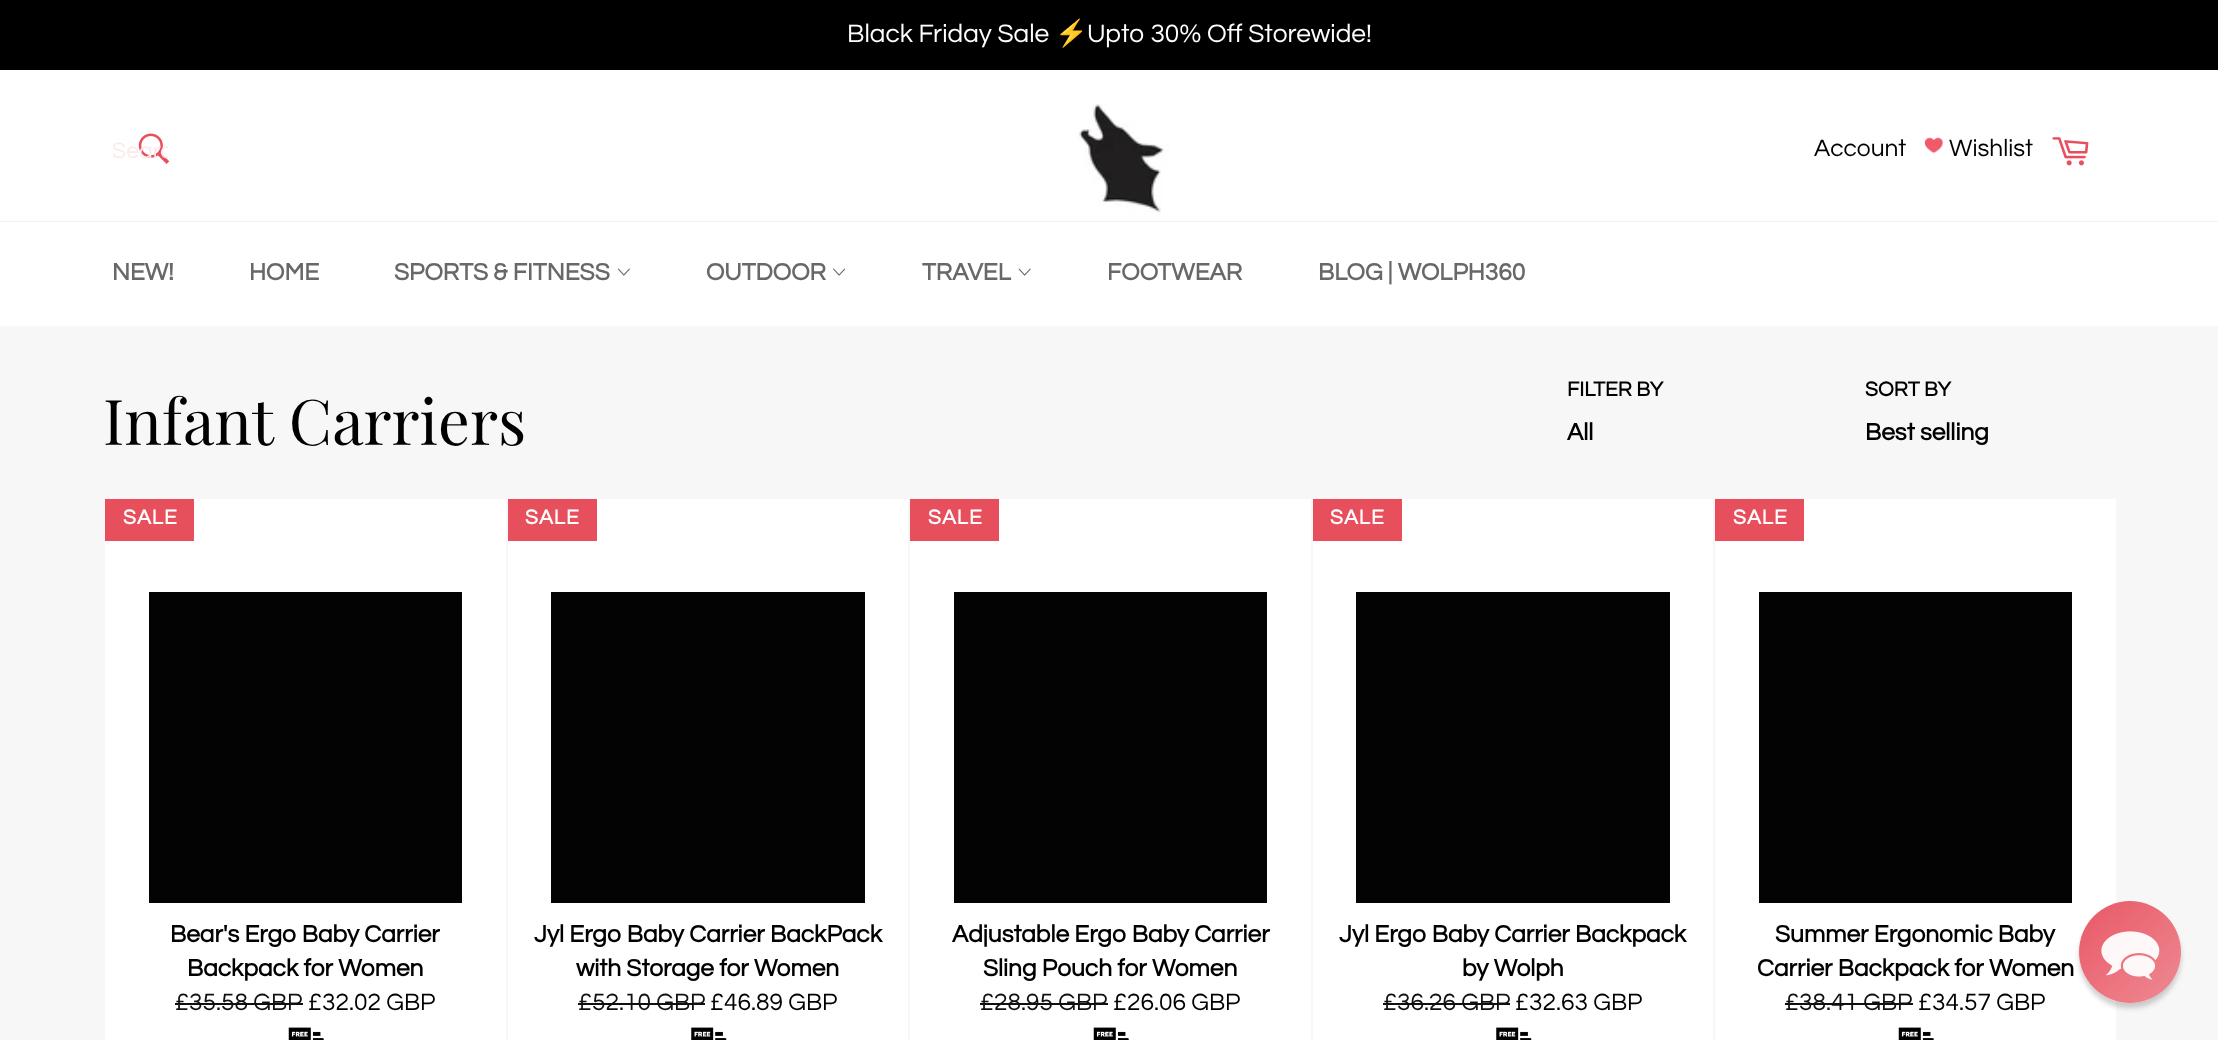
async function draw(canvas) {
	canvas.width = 2218;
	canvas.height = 1040;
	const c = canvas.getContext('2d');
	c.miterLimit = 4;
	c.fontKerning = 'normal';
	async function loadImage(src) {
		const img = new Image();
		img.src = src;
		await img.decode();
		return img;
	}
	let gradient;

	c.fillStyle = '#f7f7f7';
	c.fillRect(0, 0, 2218, 1040);
	c.fillStyle = '#000';
	c.fillRect(0, 0, 2218, 70);
	c.font = '26.25px Questrial';
	c.fillStyle = '#fff';
	c.fillText('Black Friday Sale', 847, 42);
	c.font = '26.25px Noto Color Emoji';
	c.fillText('⚡', 1055, 42);
	c.font = '26.25px Questrial';
	c.fillText('Upto 30% Off Storewide!', 1087, 42);
	c.fillRect(0, 70, 2218, 151);
	c.drawImage(await loadImage('img1.png'), 138, 133, 32, 31);
	c.save();
	c.beginPath();
	c.rect(112, 138, 56, 25);
	c.clip();
	c.font = '23px Questrial';
	c.fillStyle = '#fce9eb';
	c.fillText('Searc', 112, 158);
	c.restore();
	c.drawImage(await loadImage('img2.png'), 1078, 104, 91, 109);
	c.font = '24.5px Questrial';
	c.fillStyle = '#000';
	c.fillText('Account', 1814, 156);
	c.drawImage(await loadImage('img3.png'), 1924, 137, 20, 17);
	c.fillText('Wishlist', 1949, 156);
	c.drawImage(await loadImage('img4.png'), 2052, 137, 37, 29);
	c.fillStyle = '#f2f2f2';
	c.fillRect(0, 221, 2218, 1);
	c.fillStyle = '#fff';
	c.fillRect(0, 222, 2218, 104);
	c.font = 'bold 24.5px Questrial';
	c.fillStyle = '#686868';
	for (const [text, x, y] of [
		['NEW!', 112, 280],
		['HOME', 249, 280],
		['SPORTS & FITNESS', 394, 280],
	]) {
		c.fillText(text, x, y);
	}
	c.drawImage(await loadImage('img5.png'), 617, 268, 13, 8);
	c.fillText('OUTDOOR', 706, 280);
	c.drawImage(await loadImage('img6.png'), 833, 268, 13, 8);
	c.fillText('TRAVEL', 922, 280);
	c.drawImage(await loadImage('img7.png'), 1018, 268, 13, 8);
	c.fillText('FOOTWEAR', 1107, 280);
	c.fillText('BLOG | WOLPH360', 1318, 280);
	c.font = '63px Playfair Display';
	c.fillStyle = '#000';
	c.fillText('Infant Carriers', 103, 445);
	c.font = 'bold 21px Questrial';
	c.fillText('FILTER BY', 1567, 396);
	c.font = 'bold 24.5px Questrial';
	c.fillText('All', 1567, 440);
	c.font = 'bold 21px Questrial';
	c.fillText('SORT BY', 1865, 396);
	c.font = 'bold 24.5px Questrial';
	c.fillText('Best selling', 1865, 440);
	c.fillStyle = '#fff';
	c.fillRect(105, 499, 401, 541);
	c.fillStyle = '#e74f5d';
	c.fillRect(105, 499, 89, 42);
	c.letterSpacing = '1px';
	c.font = 'bold 21px Questrial';
	c.fillStyle = '#fff';
	c.fillText('SALE', 123, 524);
	c.fillStyle = '#030303';
	c.fillRect(149, 592, 313, 311);
	c.letterSpacing = '0px';
	c.font = 'bold 24.5px Questrial';
	c.fillStyle = '#000';
	c.fillText('Bear\'s Ergo Baby Carrier', 170, 942);
	c.fillText('Backpack for Women', 187, 976);
	c.font = '24.5px Questrial';
	c.fillStyle = '#101010';
	c.fillText('£35.58 GBP', 175, 1010);
	c.fillRect(175, 1003, 128, 2);
	c.fillStyle = '#000';
	c.fillText('£32.02 GBP', 308, 1010);
	c.drawImage(await loadImage('img8.png'), 288, 1027, 36, 13);
	c.fillStyle = '#fff';
	c.fillRect(508, 499, 400, 541);
	c.fillStyle = '#e74f5d';
	c.fillRect(508, 499, 89, 42);
	c.letterSpacing = '1px';
	c.font = 'bold 21px Questrial';
	c.fillStyle = '#fff';
	c.fillText('SALE', 525, 524);
	c.fillStyle = '#030303';
	c.fillRect(551, 592, 314, 311);
	c.letterSpacing = '0px';
	c.font = 'bold 24.5px Questrial';
	c.fillStyle = '#000';
	c.fillText('Jyl Ergo Baby Carrier BackPack', 534, 942);
	c.fillText('with Storage for Women', 576, 976);
	c.font = '24.5px Questrial';
	c.fillStyle = '#101010';
	c.fillText('£52.10 GBP', 578, 1010);
	c.fillRect(578, 1003, 127, 2);
	c.fillStyle = '#000';
	c.fillText('£46.89 GBP', 710, 1010);
	c.drawImage(await loadImage('img9.png'), 691, 1027, 36, 13);
	c.fillStyle = '#fff';
	c.fillRect(910, 499, 401, 541);
	c.fillStyle = '#e74f5d';
	c.fillRect(910, 499, 89, 42);
	c.letterSpacing = '1px';
	c.font = 'bold 21px Questrial';
	c.fillStyle = '#fff';
	c.fillText('SALE', 928, 524);
	c.fillStyle = '#030303';
	c.fillRect(954, 592, 313, 311);
	c.letterSpacing = '0px';
	c.font = 'bold 24.5px Questrial';
	c.fillStyle = '#000';
	c.fillText('Adjustable Ergo Baby Carrier', 952, 942);
	c.fillText('Sling Pouch for Women', 983, 976);
	c.font = '24.5px Questrial';
	c.fillStyle = '#101010';
	c.fillText('£28.95 GBP', 980, 1010);
	c.fillRect(980, 1003, 128, 2);
	c.fillStyle = '#000';
	c.fillText('£26.06 GBP', 1113, 1010);
	c.drawImage(await loadImage('img10.png'), 1093, 1027, 36, 13);
	c.fillStyle = '#fff';
	c.fillRect(1313, 499, 400, 541);
	c.fillStyle = '#e74f5d';
	c.fillRect(1313, 499, 89, 42);
	c.letterSpacing = '1px';
	c.font = 'bold 21px Questrial';
	c.fillStyle = '#fff';
	c.fillText('SALE', 1330, 524);
	c.fillStyle = '#030303';
	c.fillRect(1356, 592, 314, 311);
	c.letterSpacing = '0px';
	c.font = 'bold 24.5px Questrial';
	c.fillStyle = '#000';
	c.fillText('Jyl Ergo Baby Carrier Backpack', 1339, 942);
	c.fillText('by Wolph', 1462, 976);
	c.font = '24.5px Questrial';
	c.fillStyle = '#101010';
	c.fillText('£36.26 GBP', 1383, 1010);
	c.fillRect(1383, 1003, 127, 2);
	c.fillStyle = '#000';
	c.fillText('£32.63 GBP', 1515, 1010);
	c.drawImage(await loadImage('img9.png'), 1496, 1027, 36, 13);
	c.fillStyle = '#fff';
	c.fillRect(1715, 499, 401, 541);
	c.fillStyle = '#e74f5d';
	c.fillRect(1715, 499, 89, 42);
	c.letterSpacing = '1px';
	c.font = 'bold 21px Questrial';
	c.fillStyle = '#fff';
	c.fillText('SALE', 1733, 524);
	c.fillStyle = '#030303';
	c.fillRect(1759, 592, 313, 311);
	c.letterSpacing = '0px';
	c.font = 'bold 24.5px Questrial';
	c.fillStyle = '#000';
	c.fillText('Summer Ergonomic Baby', 1775, 942);
	c.fillText('Carrier Backpack for Women', 1757, 976);
	c.font = '24.5px Questrial';
	c.fillStyle = '#101010';
	c.fillText('£38.41 GBP', 1785, 1010);
	c.fillRect(1785, 1003, 128, 2);
	c.fillStyle = '#000';
	c.fillText('£34.57 GBP', 1918, 1010);
	c.drawImage(await loadImage('img10.png'), 1898, 1027, 36, 13);
	c.save();
	c.beginPath();
	c.moveTo(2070, 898);
	c.lineTo(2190, 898);
	c.lineTo(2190, 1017);
	c.lineTo(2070, 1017);
	c.closePath();
	c.moveTo(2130, 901);
	c.bezierCurveTo(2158, 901, 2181, 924, 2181, 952);
	c.bezierCurveTo(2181, 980, 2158, 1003, 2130, 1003);
	c.bezierCurveTo(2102, 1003, 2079, 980, 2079, 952);
	c.bezierCurveTo(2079, 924, 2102, 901, 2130, 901);
	c.closePath();
	c.clip('evenodd');
	c.fillStyle = '#00000030';
	c.filter = 'blur(2.5px)';
	c.beginPath();
	c.roundRect(2079, 907, 102, 101, 50.5);
	c.fill();
	c.filter = 'none';
	c.restore();
	gradient = c.createLinearGradient(2079, 901, 2181, 1003);
	gradient.addColorStop(0, '#e74f5df2');
	gradient.addColorStop(1, '#ee848ef2');
	c.fillStyle = gradient;
	c.beginPath();
	c.arc(2130, 952, 51, 0, 2 * Math.PI);
	c.fill();
	c.drawImage(await loadImage('img11.png'), 2101, 931, 59, 49);
}

draw(document.querySelector('canvas'));
